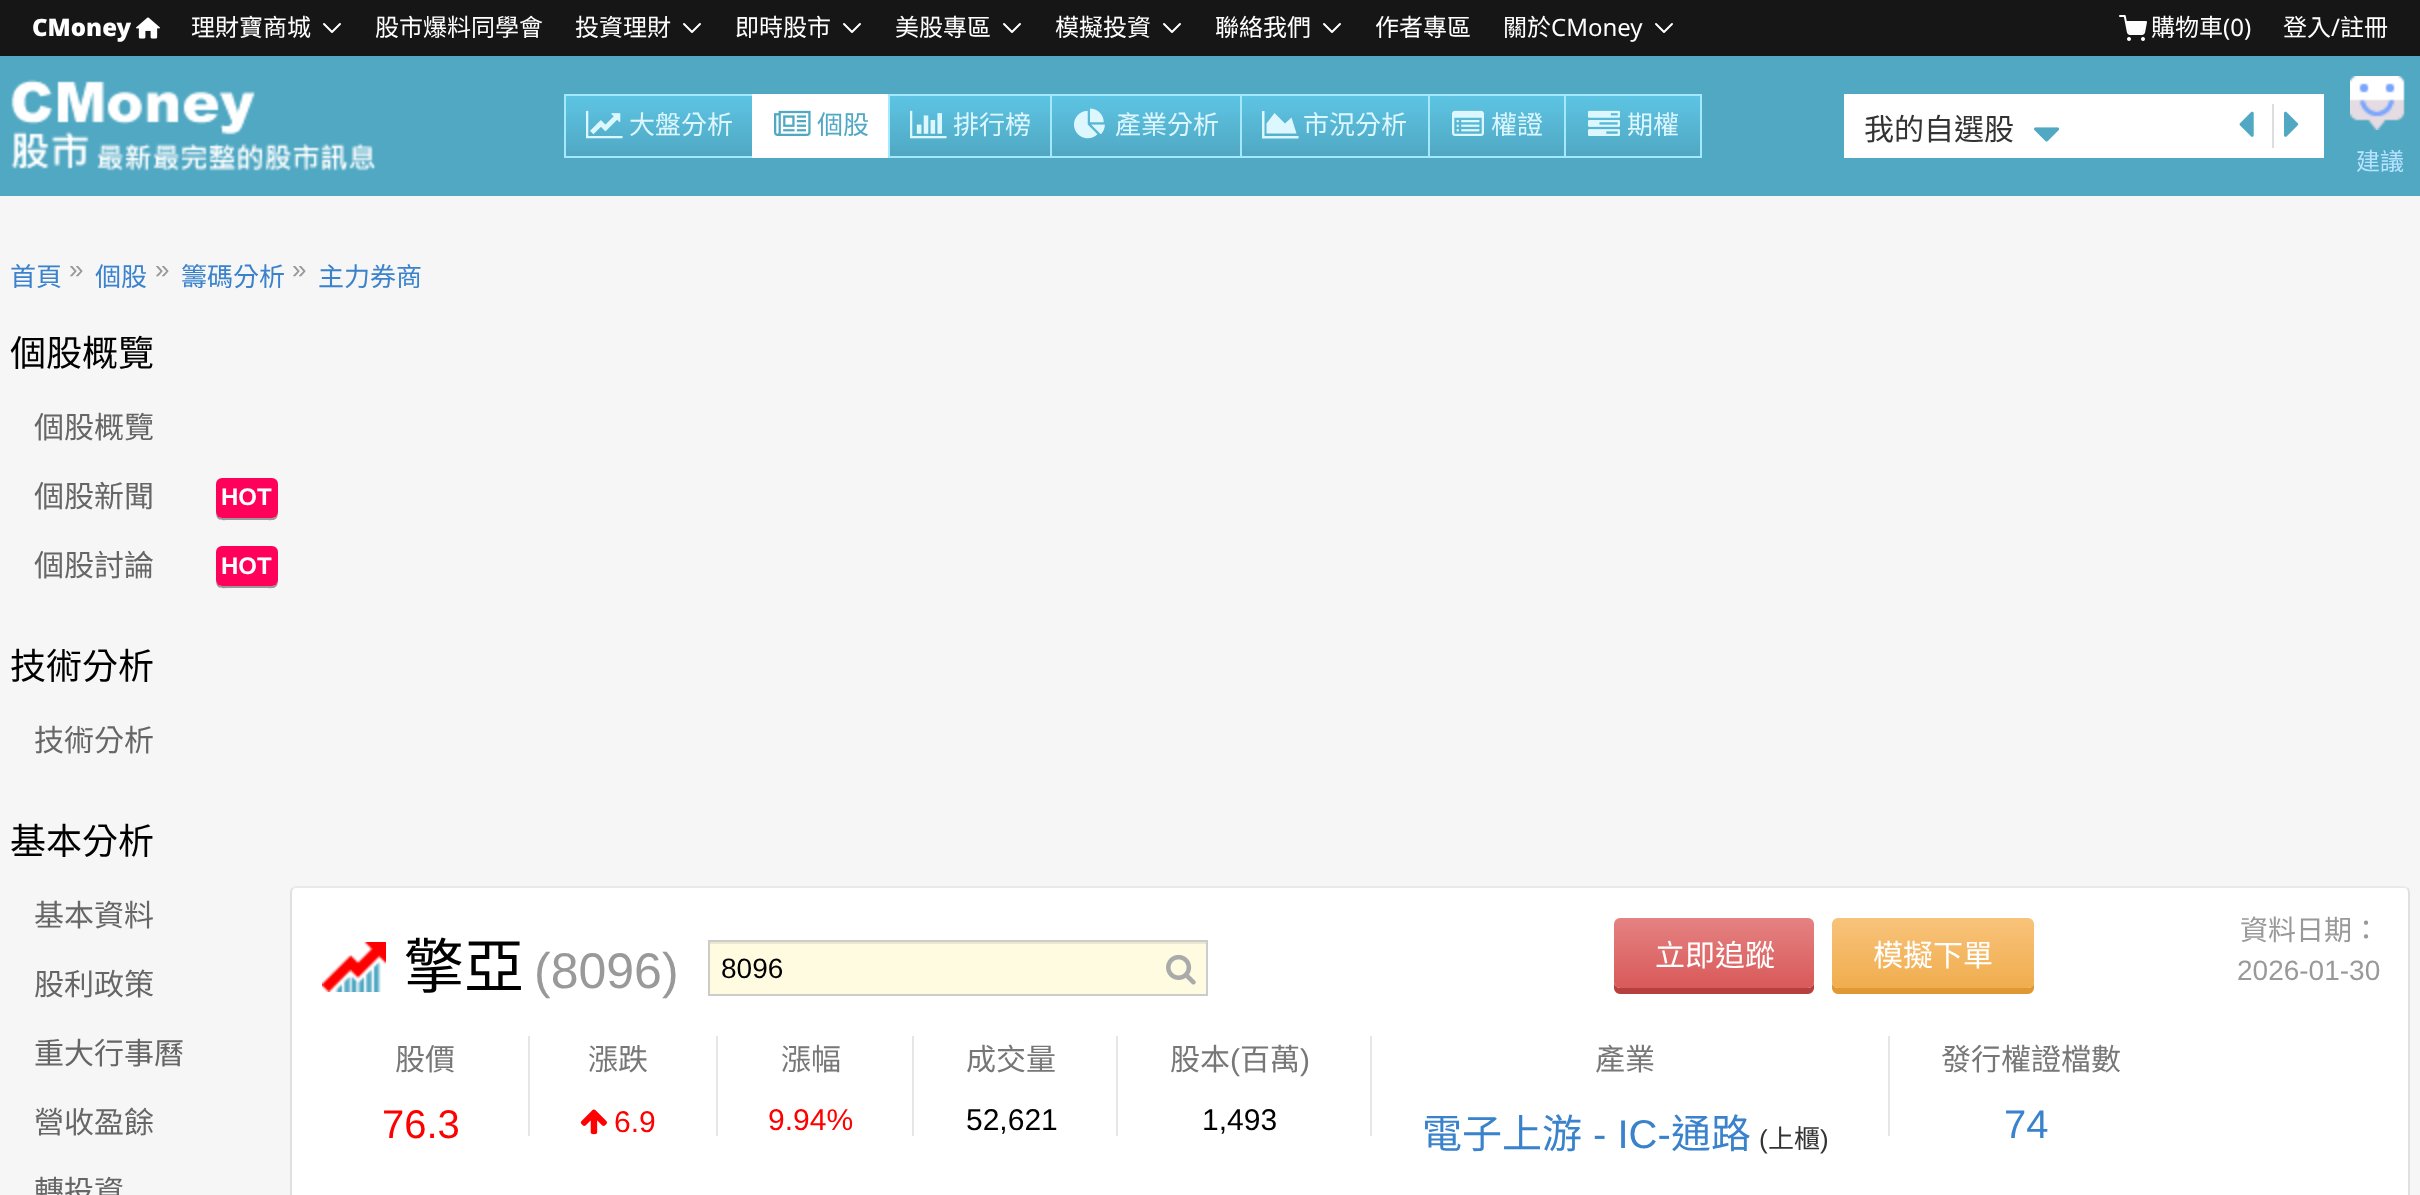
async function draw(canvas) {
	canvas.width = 2420;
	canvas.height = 1195;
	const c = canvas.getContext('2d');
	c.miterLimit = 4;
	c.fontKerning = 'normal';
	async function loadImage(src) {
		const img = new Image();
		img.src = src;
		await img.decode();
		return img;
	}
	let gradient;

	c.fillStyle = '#f6f6f6';
	c.fillRect(0, 0, 2420, 1195);
	c.fillStyle = '#161616';
	c.fillRect(0, 0, 2420, 56);
	c.font = '900 24px Noto Sans';
	c.fillStyle = '#fff';
	c.fillText('CMoney', 32, 36);
	c.drawImage(await loadImage('img1.png'), 136, 17, 24, 22);
	c.font = '24px Noto Sans CJK TC';
	c.fillText('理財寶商城', 191, 36);
	c.beginPath();
	c.moveTo(324, 24);
	c.lineTo(332, 32);
	c.lineTo(340, 24);
	c.strokeStyle = '#fff';
	c.lineWidth = 2;
	c.lineCap = 'round';
	c.lineJoin = 'round';
	c.stroke();
	c.fillText('股市爆料同學會', 375, 36);
	c.fillText('投資理財', 575, 36);
	c.beginPath();
	c.moveTo(684, 24);
	c.lineTo(692, 32);
	c.lineTo(700, 24);
	c.stroke();
	c.fillText('即時股市', 735, 36);
	c.beginPath();
	c.moveTo(844, 24);
	c.lineTo(852, 32);
	c.lineTo(860, 24);
	c.stroke();
	c.fillText('美股專區', 895, 36);
	c.beginPath();
	c.moveTo(1004, 24);
	c.lineTo(1012, 32);
	c.lineTo(1020, 24);
	c.stroke();
	c.fillText('模擬投資', 1055, 36);
	c.beginPath();
	c.moveTo(1164, 24);
	c.lineTo(1172, 32);
	c.lineTo(1180, 24);
	c.stroke();
	c.fillText('聯絡我們', 1215, 36);
	c.beginPath();
	c.moveTo(1324, 24);
	c.lineTo(1332, 32);
	c.lineTo(1340, 24);
	c.stroke();
	c.fillText('作者專區', 1375, 36);
	c.fillText('關於', 1503, 36);
	c.font = '24px Noto Sans';
	c.fillText('CMoney', 1551, 36);
	c.beginPath();
	c.moveTo(1656, 24);
	c.lineTo(1664, 32);
	c.lineTo(1672, 24);
	c.stroke();
	c.drawImage(await loadImage('img2.png'), 2119, 15, 28, 26);
	c.font = '24px Noto Sans CJK TC';
	c.fillText('購物車', 2151, 36);
	c.font = '24px Noto Sans';
	c.fillText('(0', 2223, 36);
	c.fillText(')', 2244, 36);
	c.font = '24px Noto Sans CJK TC';
	c.fillText('登入', 2283, 36);
	c.font = '24px Noto Sans';
	c.fillText('/', 2331, 36);
	c.font = '24px Noto Sans CJK TC';
	c.fillText('註冊', 2340, 36);
	c.fillStyle = '#50a8c3';
	c.fillRect(0, 56, 2420, 140);
	c.drawImage(await loadImage('img3.png'), 11, 79, 366, 92);
	gradient = c.createLinearGradient(659, 96, 659, 156);
	gradient.addColorStop(0, '#5dc4e3');
	gradient.addColorStop(1, '#50a8c3');
	c.fillStyle = gradient;
	c.fillRect(566, 96, 186, 55);
	c.strokeStyle = '#a3e9ff';
	c.lineJoin = 'miter';
	c.strokeRect(565, 95, 188, 62);
	c.drawImage(await loadImage('img4.png'), 586, 110, 37, 29);
	c.font = '26px Noto Sans CJK TC';
	c.fillStyle = '#ddf7ff';
	c.fillText('大盤分析', 629, 134);
	c.fillStyle = '#fff';
	c.fillRect(752, 94, 136, 64);
	c.drawImage(await loadImage('img5.png'), 774, 110, 37, 26);
	c.fillStyle = '#50a8c3';
	c.fillText('個股', 817, 134);
	gradient = c.createLinearGradient(970, 96, 970, 156);
	gradient.addColorStop(0, '#5dc4e3');
	gradient.addColorStop(1, '#50a8c3');
	c.fillStyle = gradient;
	c.fillRect(890, 96, 160, 55);
	c.strokeRect(889, 95, 162, 62);
	c.drawImage(await loadImage('img6.png'), 910, 110, 37, 29);
	c.fillStyle = '#ddf7ff';
	c.fillText('排行榜', 953, 134);
	gradient = c.createLinearGradient(1146, 96, 1146, 156);
	gradient.addColorStop(0, '#5dc4e3');
	gradient.addColorStop(1, '#50a8c3');
	c.fillStyle = gradient;
	c.fillRect(1052, 96, 188, 55);
	c.strokeRect(1051, 95, 190, 62);
	c.drawImage(await loadImage('img7.png'), 1074, 108, 31, 31);
	c.fillStyle = '#ddf7ff';
	c.fillText('產業分析', 1115, 134);
	gradient = c.createLinearGradient(1335, 96, 1335, 156);
	gradient.addColorStop(0, '#5dc4e3');
	gradient.addColorStop(1, '#50a8c3');
	c.fillStyle = gradient;
	c.fillRect(1242, 96, 186, 55);
	c.strokeRect(1241, 95, 188, 62);
	c.fillStyle = '#ddf7ff';
	c.beginPath();
	c.moveTo(1298.5, 136);
	c.lineTo(1298.5, 138.5);
	c.lineTo(1262, 138.5);
	c.lineTo(1262, 111);
	c.lineTo(1264.5, 111);
	c.lineTo(1264.5, 136);
	c.closePath();
	c.moveTo(1291.5, 117.5);
	c.lineTo(1296.5, 133.5);
	c.lineTo(1266.5, 133.5);
	c.lineTo(1266.5, 123.5);
	c.lineTo(1274.5, 113);
	c.lineTo(1285, 123.5);
	c.closePath();
	c.fill();
	c.fillText('市況分析', 1303, 134);
	gradient = c.createLinearGradient(1497, 96, 1497, 156);
	gradient.addColorStop(0, '#5dc4e3');
	gradient.addColorStop(1, '#50a8c3');
	c.fillStyle = gradient;
	c.fillRect(1430, 96, 134, 55);
	c.strokeRect(1429, 95, 136, 62);
	c.drawImage(await loadImage('img8.png'), 1452, 110, 32, 26);
	c.fillStyle = '#ddf7ff';
	c.fillText('權證', 1491, 134);
	gradient = c.createLinearGradient(1633, 96, 1633, 156);
	gradient.addColorStop(0, '#5dc4e3');
	gradient.addColorStop(1, '#50a8c3');
	c.fillStyle = gradient;
	c.fillRect(1566, 96, 134, 55);
	c.strokeRect(1565, 95, 136, 62);
	c.drawImage(await loadImage('img9.png'), 1588, 110, 32, 26);
	c.fillStyle = '#ddf7ff';
	c.fillText('期權', 1627, 134);
	c.fillStyle = '#fff';
	c.fillRect(1844, 94, 480, 64);
	c.font = '30px Noto Sans CJK TC';
	c.fillStyle = '#333';
	c.fillText('我的自選股', 1864, 140);
	c.drawImage(await loadImage('img10.png'), 2034, 127, 26, 15);
	c.fillStyle = '#ddd';
	c.fillRect(2272, 104, 2, 44);
	c.drawImage(await loadImage('img11.png'), 2239, 111, 15, 26);
	c.drawImage(await loadImage('img12.png'), 2284, 111, 15, 26);
	c.drawImage(await loadImage('img13.png'), 2350, 76, 55, 54);
	c.font = '24px Noto Sans CJK TC';
	c.fillStyle = '#b8e3ff';
	c.fillText('建議', 2356, 170);
	c.font = '26px Noto Sans CJK TC';
	c.fillStyle = '#3a82cc';
	c.fillText('首頁', 10, 286);
	c.font = '26px Liberation Sans';
	c.fillStyle = '#999';
	c.fillText('»', 69, 278);
	c.font = '26px Noto Sans CJK TC';
	c.fillStyle = '#3a82cc';
	c.fillText('個股', 95, 286);
	c.font = '26px Liberation Sans';
	c.fillStyle = '#999';
	c.fillText('»', 155, 278);
	c.font = '26px Noto Sans CJK TC';
	c.fillStyle = '#3a82cc';
	c.fillText('籌碼分析', 181, 286);
	c.font = '26px Liberation Sans';
	c.fillStyle = '#999';
	c.fillText('»', 292, 278);
	c.font = '26px Noto Sans CJK TC';
	c.fillStyle = '#3a82cc';
	c.fillText('主力券商', 318, 286);
	c.font = '36px Noto Sans CJK TC';
	c.fillStyle = '#000';
	c.fillText('個股概覽', 10, 366);
	c.font = '30px Noto Sans CJK TC';
	c.fillStyle = '#666';
	c.fillText('個股概覽', 34, 438);
	c.fillText('個股新聞', 34, 507);
	c.fillStyle = '#999';
	c.beginPath();
	c.moveTo(216, 512);
	c.bezierCurveTo(216, 522, 222, 520, 230, 520);
	c.lineTo(264, 520);
	c.bezierCurveTo(272, 520, 278, 522, 278, 512);
	c.bezierCurveTo(278, 515, 275, 518, 272, 518);
	c.lineTo(222, 518);
	c.bezierCurveTo(219, 518, 216, 515, 216, 512);
	c.closePath();
	c.fill();
	c.fillStyle = '#ff005b';
	c.beginPath();
	c.roundRect(216, 478, 62, 40, 6);
	c.fill();
	c.font = 'bold 24px Liberation Sans';
	c.fillStyle = '#fff';
	c.fillText('HOT', 221, 505);
	c.font = '30px Noto Sans CJK TC';
	c.fillStyle = '#666';
	c.fillText('個股討論', 34, 576);
	c.fillStyle = '#999';
	c.beginPath();
	c.moveTo(216, 580);
	c.bezierCurveTo(216, 590, 222, 588, 230, 588);
	c.lineTo(264, 588);
	c.bezierCurveTo(272, 588, 278, 590, 278, 580);
	c.bezierCurveTo(278, 583, 275, 586, 272, 586);
	c.lineTo(222, 586);
	c.bezierCurveTo(219, 586, 216, 583, 216, 580);
	c.closePath();
	c.fill();
	c.fillStyle = '#ff005b';
	c.beginPath();
	c.roundRect(216, 546, 62, 40, 6);
	c.fill();
	c.font = 'bold 24px Liberation Sans';
	c.fillStyle = '#fff';
	c.fillText('HOT', 221, 574);
	c.font = '36px Noto Sans CJK TC';
	c.fillStyle = '#000';
	c.fillText('技術分析', 10, 679);
	c.font = '30px Noto Sans CJK TC';
	c.fillStyle = '#666';
	c.fillText('技術分析', 34, 751);
	c.font = '36px Noto Sans CJK TC';
	c.fillStyle = '#000';
	c.fillText('基本分析', 10, 854);
	c.font = '30px Noto Sans CJK TC';
	c.fillStyle = '#666';
	for (const [text, x, y] of [
		['基本資料', 34, 926],
		['股利政策', 34, 995],
		['重大行事曆', 34, 1064],
		['營收盈餘', 34, 1133],
		['轉投資', 34, 1202],
	]) {
		c.fillText(text, x, y);
	}
	c.fillStyle = '#fff';
	c.beginPath();
	c.roundRect(290, 886, 2120, 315, 6);
	c.fill();
	c.beginPath();
	c.moveTo(292.5, 888.5);
	c.bezierCurveTo(293.5, 887.5, 294.5, 887, 296, 887);
	c.lineTo(2404, 887);
	c.bezierCurveTo(2405.5, 887, 2406.5, 887.5, 2407.5, 888.5);
	c.strokeStyle = '#e9eaed';
	c.lineCap = 'butt';
	c.stroke();
	c.beginPath();
	c.moveTo(2407.5, 888.5);
	c.bezierCurveTo(2408.5, 889.5, 2409, 890.5, 2409, 892);
	c.lineTo(2409, 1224);
	c.bezierCurveTo(2409, 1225.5, 2408.5, 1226.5, 2407.5, 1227.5);
	c.strokeStyle = '#dfe0e4';
	c.stroke();
	c.beginPath();
	c.moveTo(292.5, 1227.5);
	c.bezierCurveTo(291.5, 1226.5, 291, 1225.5, 291, 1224);
	c.lineTo(291, 892);
	c.bezierCurveTo(291, 890.5, 291.5, 889.5, 292.5, 888.5);
	c.stroke();
	c.drawImage(await loadImage('img14.png'), 322, 942, 64, 50);
	c.font = '60px Noto Sans CJK TC';
	c.fillStyle = '#000';
	c.fillText('擎亞', 404, 988);
	c.font = '50px Liberation Sans';
	c.fillStyle = '#999';
	c.fillText('(8096)', 534, 988);
	c.fillStyle = '#fffbe1';
	c.fillRect(710, 944, 496, 50);
	c.fillStyle = '#ece8d0';
	c.fillRect(710, 942, 496, 2);
	c.strokeStyle = '#ccc';
	c.strokeRect(709, 941, 498, 54);
	c.font = '28px Liberation Sans';
	c.fillStyle = '#000';
	c.fillText('8096', 721, 978);
	c.drawImage(await loadImage('img15.png'), 1166, 954, 30, 31);
	c.fillStyle = '#b63f3f';
	c.beginPath();
	c.moveTo(1614, 982);
	c.lineTo(1614, 988);
	c.bezierCurveTo(1614, 991, 1617, 994, 1620, 994);
	c.lineTo(1808, 994);
	c.bezierCurveTo(1811, 994, 1814, 991, 1814, 988);
	c.lineTo(1814, 982);
	c.bezierCurveTo(1814, 985, 1811, 988, 1808, 988);
	c.lineTo(1620, 988);
	c.bezierCurveTo(1617, 988, 1614, 985, 1614, 982);
	c.closePath();
	c.fill();
	gradient = c.createLinearGradient(1714, 918, 1714, 988);
	gradient.addColorStop(0, '#e58282');
	gradient.addColorStop(1, '#d95959');
	c.fillStyle = gradient;
	c.beginPath();
	c.roundRect(1614, 918, 200, 70, 6);
	c.fill();
	c.font = '30px Noto Sans CJK TC';
	c.fillStyle = '#fff';
	c.fillText('立即追蹤', 1655, 966);
	c.fillStyle = '#df9834';
	c.beginPath();
	c.moveTo(1832, 982);
	c.lineTo(1832, 988);
	c.bezierCurveTo(1832, 991, 1835, 994, 1838, 994);
	c.lineTo(2028, 994);
	c.bezierCurveTo(2031, 994, 2034, 991, 2034, 988);
	c.lineTo(2034, 982);
	c.bezierCurveTo(2034, 985, 2031, 988, 2028, 988);
	c.lineTo(1838, 988);
	c.bezierCurveTo(1835, 988, 1832, 985, 1832, 982);
	c.closePath();
	c.fill();
	gradient = c.createLinearGradient(1933, 918, 1933, 988);
	gradient.addColorStop(0, '#f8c37a');
	gradient.addColorStop(1, '#f0ad4e');
	c.fillStyle = gradient;
	c.beginPath();
	c.roundRect(1832, 918, 202, 70, 6);
	c.fill();
	c.fillStyle = '#fff';
	c.fillText('模擬下單', 1873, 966);
	c.font = '28px Noto Sans CJK TC';
	c.fillStyle = '#999';
	c.fillText('資料日期：', 2240, 940);
	c.font = '28px Liberation Sans';
	c.fillText('2026-01-30', 2237, 980);
	c.font = '30px Noto Sans CJK TC';
	c.fillStyle = '#777';
	c.fillText('股價', 395, 1070);
	c.font = '40px Liberation Sans';
	c.fillStyle = '#f00';
	c.fillText('76.3', 382, 1138);
	c.fillStyle = '#e6e6e6';
	c.fillRect(528, 1036, 2, 100);
	c.font = '30px Noto Sans CJK TC';
	c.fillStyle = '#777';
	c.fillText('漲跌', 588, 1070);
	c.drawImage(await loadImage('img16.png'), 580, 1109, 27, 26);
	c.font = '30px Liberation Sans';
	c.fillStyle = '#f00';
	c.fillText('6.9', 614, 1132);
	c.fillStyle = '#e6e6e6';
	c.fillRect(716, 1036, 2, 100);
	c.font = '30px Noto Sans CJK TC';
	c.fillStyle = '#777';
	c.fillText('漲幅', 781, 1070);
	c.font = '30px Liberation Sans';
	c.fillStyle = '#f00';
	c.fillText('9.94%', 768, 1130);
	c.fillStyle = '#e6e6e6';
	c.fillRect(912, 1036, 2, 100);
	c.font = '30px Noto Sans CJK TC';
	c.fillStyle = '#777';
	c.fillText('成交量', 966, 1070);
	c.font = '30px Liberation Sans';
	c.fillStyle = '#000';
	c.fillText('52,621', 966, 1130);
	c.fillStyle = '#e6e6e6';
	c.fillRect(1116, 1036, 2, 100);
	c.font = '30px Noto Sans CJK TC';
	c.fillStyle = '#777';
	c.fillText('股本', 1170, 1070);
	c.font = '30px Liberation Sans';
	c.fillText('(', 1230, 1070);
	c.font = '30px Noto Sans CJK TC';
	c.fillText('百萬', 1240, 1070);
	c.font = '30px Liberation Sans';
	c.fillText(')', 1300, 1070);
	c.fillStyle = '#000';
	c.fillText('1,493', 1202, 1130);
	c.fillStyle = '#e6e6e6';
	c.fillRect(1370, 1036, 2, 100);
	c.font = '30px Noto Sans CJK TC';
	c.fillStyle = '#777';
	c.fillText('產業', 1595, 1070);
	c.font = '40px Noto Sans CJK TC';
	c.fillStyle = '#3a82cc';
	c.fillText('電子上游', 1422, 1148);
	c.font = '40px Liberation Sans';
	c.fillText('- IC-', 1593, 1148);
	c.font = '40px Noto Sans CJK TC';
	c.fillText('通路', 1671, 1148);
	c.font = '26px Liberation Sans';
	c.fillStyle = '#333';
	c.fillText('(', 1759, 1148);
	c.font = '26px Noto Sans CJK TC';
	c.fillText('上櫃', 1768, 1148);
	c.font = '26px Liberation Sans';
	c.fillText(')', 1820, 1148);
	c.fillStyle = '#e6e6e6';
	c.fillRect(1888, 1036, 2, 100);
	c.font = '30px Noto Sans CJK TC';
	c.fillStyle = '#777';
	c.fillText('發行權證檔數', 1941, 1070);
	c.font = '40px Liberation Sans';
	c.fillStyle = '#3a82cc';
	c.fillText('74', 2004, 1138);
}

draw(document.querySelector('canvas'));
